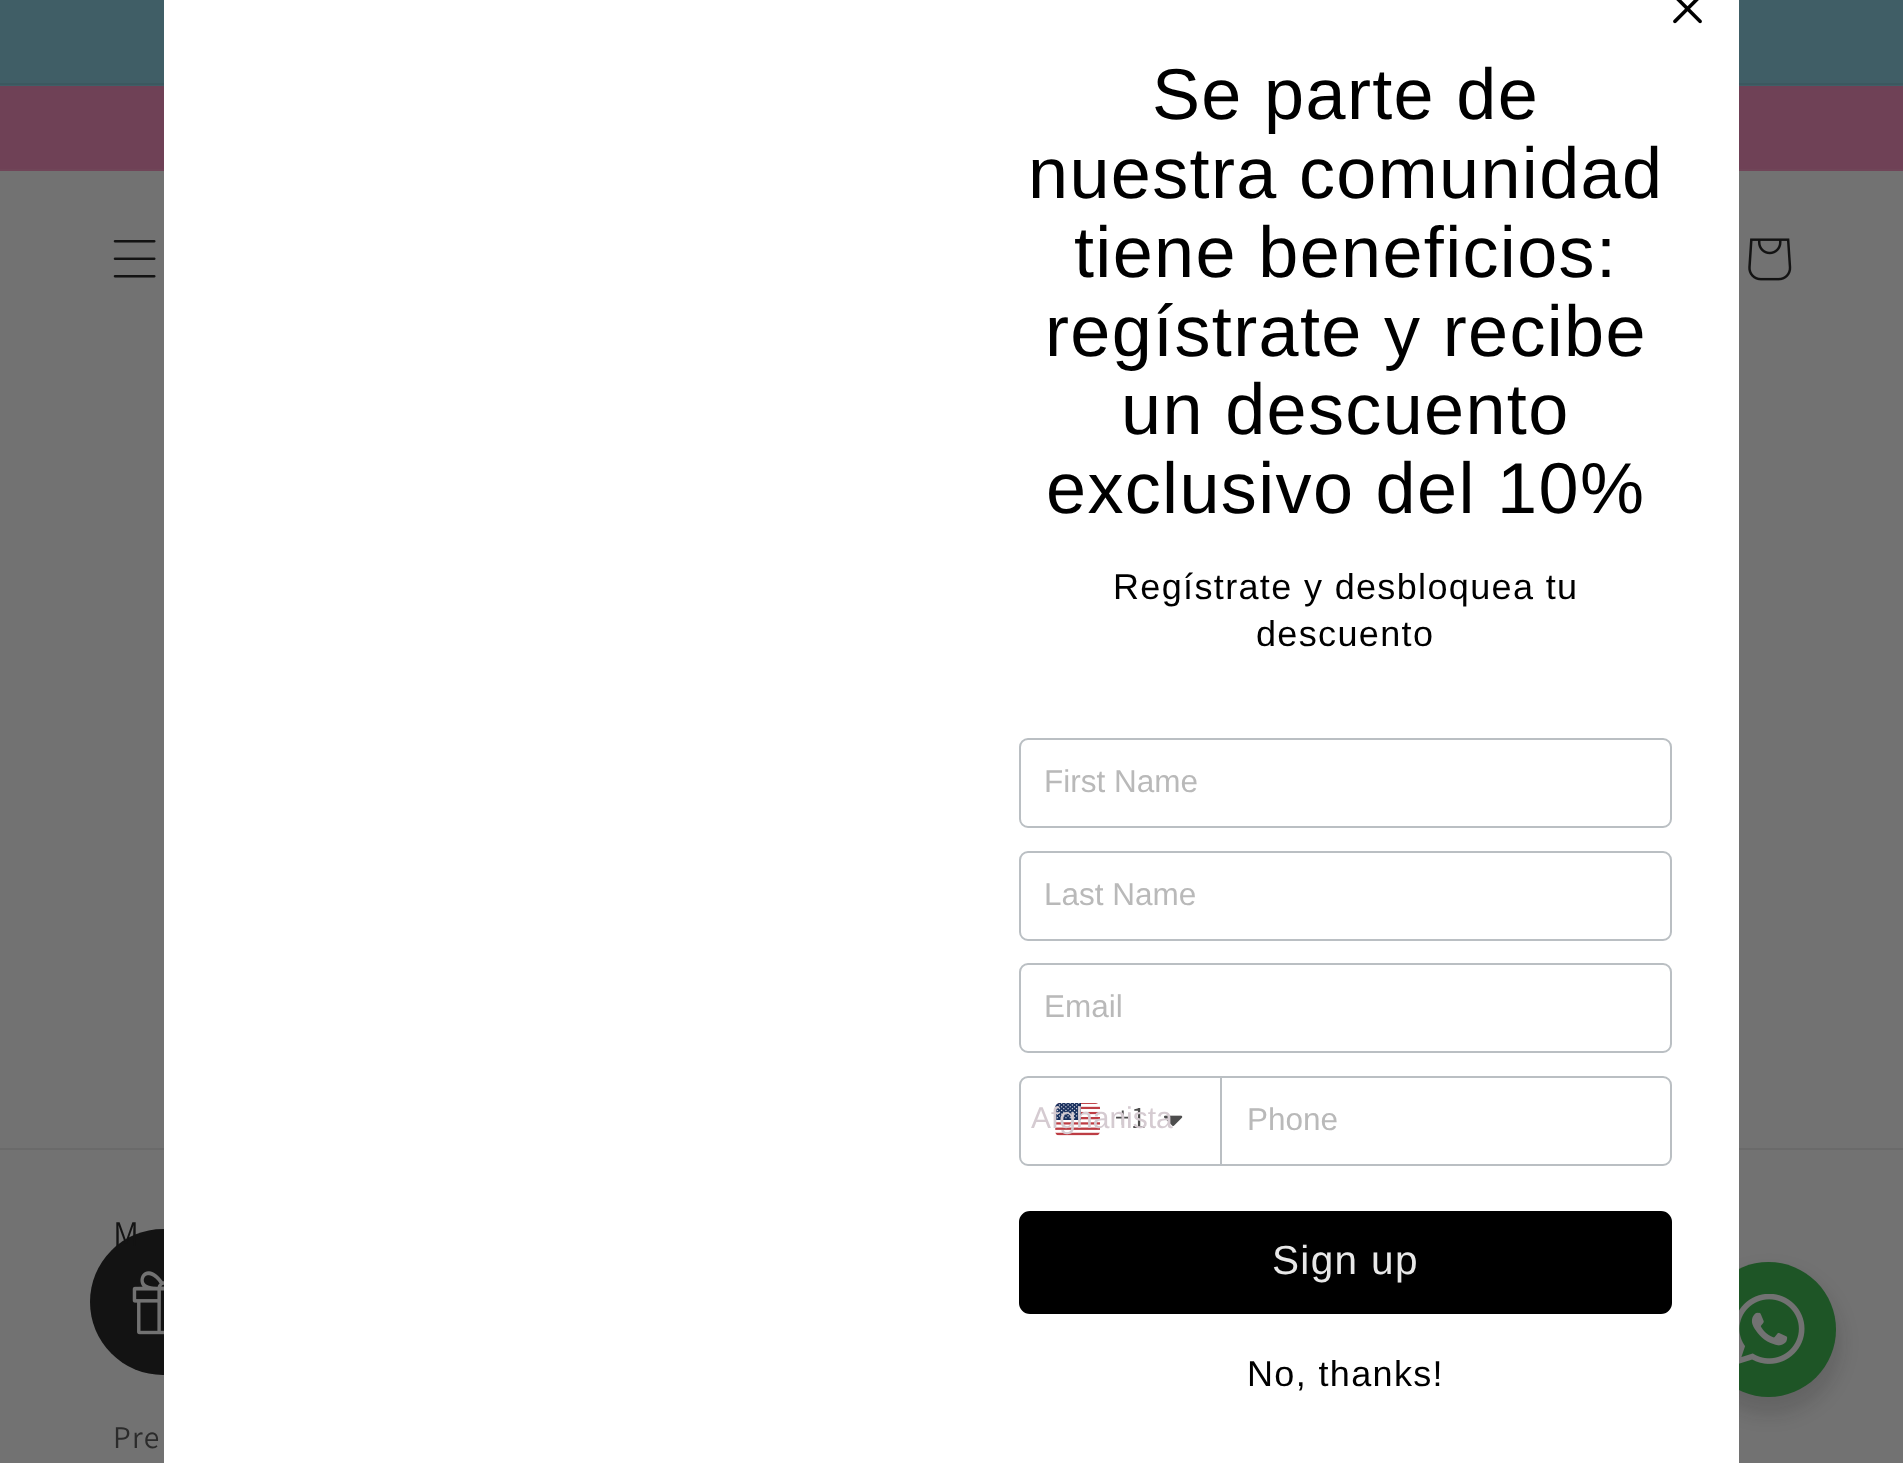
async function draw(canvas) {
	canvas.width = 1903;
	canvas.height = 1463;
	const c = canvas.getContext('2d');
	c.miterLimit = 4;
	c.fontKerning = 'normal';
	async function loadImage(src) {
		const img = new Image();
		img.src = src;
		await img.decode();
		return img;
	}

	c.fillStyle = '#727272';
	c.fillRect(0, 0, 1903, 1463);
	for (const [x, y, w, h, color] of [
		[0, 0, 1903, 86, '#405e66'],
		[0, 83, 1903, 2, '#3c585f'],
		[0, 86, 1903, 83, '#6f4156'],
		[0, 169, 1903, 2, '#704558'],
		[0, 1148, 1903, 2, '#6a6a6a'],
	]) {
		c.fillStyle = color;
		c.fillRect(x, y, w, h);
	}
	c.fillStyle = '#131313';
	c.beginPath();
	c.arc(163, 1302, 73, 0, 2 * Math.PI);
	c.fill();
	c.fillStyle = '#0c0c0c24';
	c.filter = 'blur(9px)';
	c.beginPath();
	c.roundRect(1697, 1271, 144, 144, 72);
	c.fill();
	c.filter = 'none';
	c.fillStyle = '#1e5526';
	c.beginPath();
	c.arc(1768.5, 1329.5, 67.5, 0, 2 * Math.PI);
	c.fill();
	c.fillStyle = '#fff';
	c.fillRect(164, 0, 1575, 1463);
	c.drawImage(await loadImage('img1.png'), 1673, 0, 29, 24);
	c.letterSpacing = '1.35px';
	c.font = '72px Liberation Sans';
	c.fillStyle = '#000';
	for (const [text, x, y] of [
		['Se parte de', 1152, 119],
		['nuestra comunidad', 1028, 198],
		['tiene beneficios:', 1074, 277],
		['regístrate y recibe', 1045, 356],
		['un descuento', 1121, 434],
		['exclusivo del 10%', 1046, 513],
	]) {
		c.fillText(text, x, y);
	}
	c.font = '36px Liberation Sans';
	c.fillText('Regístrate y desbloquea tu', 1113, 599);
	c.fillText('descuento', 1256, 646);
	c.beginPath();
	c.roundRect(1020, 739, 651, 88, 8);
	c.strokeStyle = '#babfc3';
	c.lineWidth = 2;
	c.stroke();
	c.letterSpacing = '0px';
	c.font = '31.5px Liberation Sans';
	c.fillStyle = '#b9b9b9';
	c.fillText('First Name', 1044, 792);
	c.beginPath();
	c.roundRect(1020, 852, 651, 88, 8);
	c.stroke();
	c.fillText('Last Name', 1044, 905);
	c.beginPath();
	c.roundRect(1020, 964, 651, 88, 8);
	c.stroke();
	c.fillText('Email', 1044, 1017);
	c.beginPath();
	c.roundRect(1020, 1077, 651, 88, 8);
	c.stroke();
	c.fillStyle = '#babfc3';
	c.fillRect(1220, 1076, 2, 90);
	c.drawImage(await loadImage('img2.png'), 1055, 1103, 45, 33);
	c.letterSpacing = '1.35px';
	c.font = '31.5px Assistant';
	c.fillStyle = '#4d4d4d';
	c.fillText('+1', 1115, 1128);
	c.drawImage(await loadImage('img3.png'), 1164, 1115, 19, 11);
	c.letterSpacing = '0px';
	c.font = '30px Liberation Sans';
	c.fillStyle = '#d5cbd1';
	c.fillText('Afghanista', 1031, 1128);
	c.font = '31.5px Liberation Sans';
	c.fillStyle = '#b9b9b9';
	c.fillText('Phone', 1247, 1130);
	c.fillStyle = '#000';
	c.beginPath();
	c.roundRect(1021.5, 1213.5, 648, 98, 8.5);
	c.fill();
	c.strokeStyle = '#000';
	c.lineWidth = 5;
	c.stroke();
	c.letterSpacing = '1.35px';
	c.font = '40.5px Liberation Sans';
	c.fillStyle = '#e8e8e8';
	c.fillText('Sign up', 1272, 1274);
	c.font = '36px Liberation Sans';
	c.fillStyle = '#000';
	c.fillText('No, thanks!', 1247, 1386);
	c.drawImage(await loadImage('img4.png'), 113, 240, 43, 38);
	c.drawImage(await loadImage('img5.png'), 1748, 238, 44, 43);
	c.font = '36px Assistant';
	c.fillStyle = '#131313';
	c.fillText('M', 113, 1246);
	c.font = '31.5px Assistant';
	c.fillStyle = '#2b2b2b';
	c.fillText('Pre', 113, 1448);
	c.drawImage(await loadImage('img6.png'), 132, 1271, 32, 64);
	c.drawImage(await loadImage('img7.png'), 1739, 1294, 66, 70);
}

draw(document.querySelector('canvas'));
